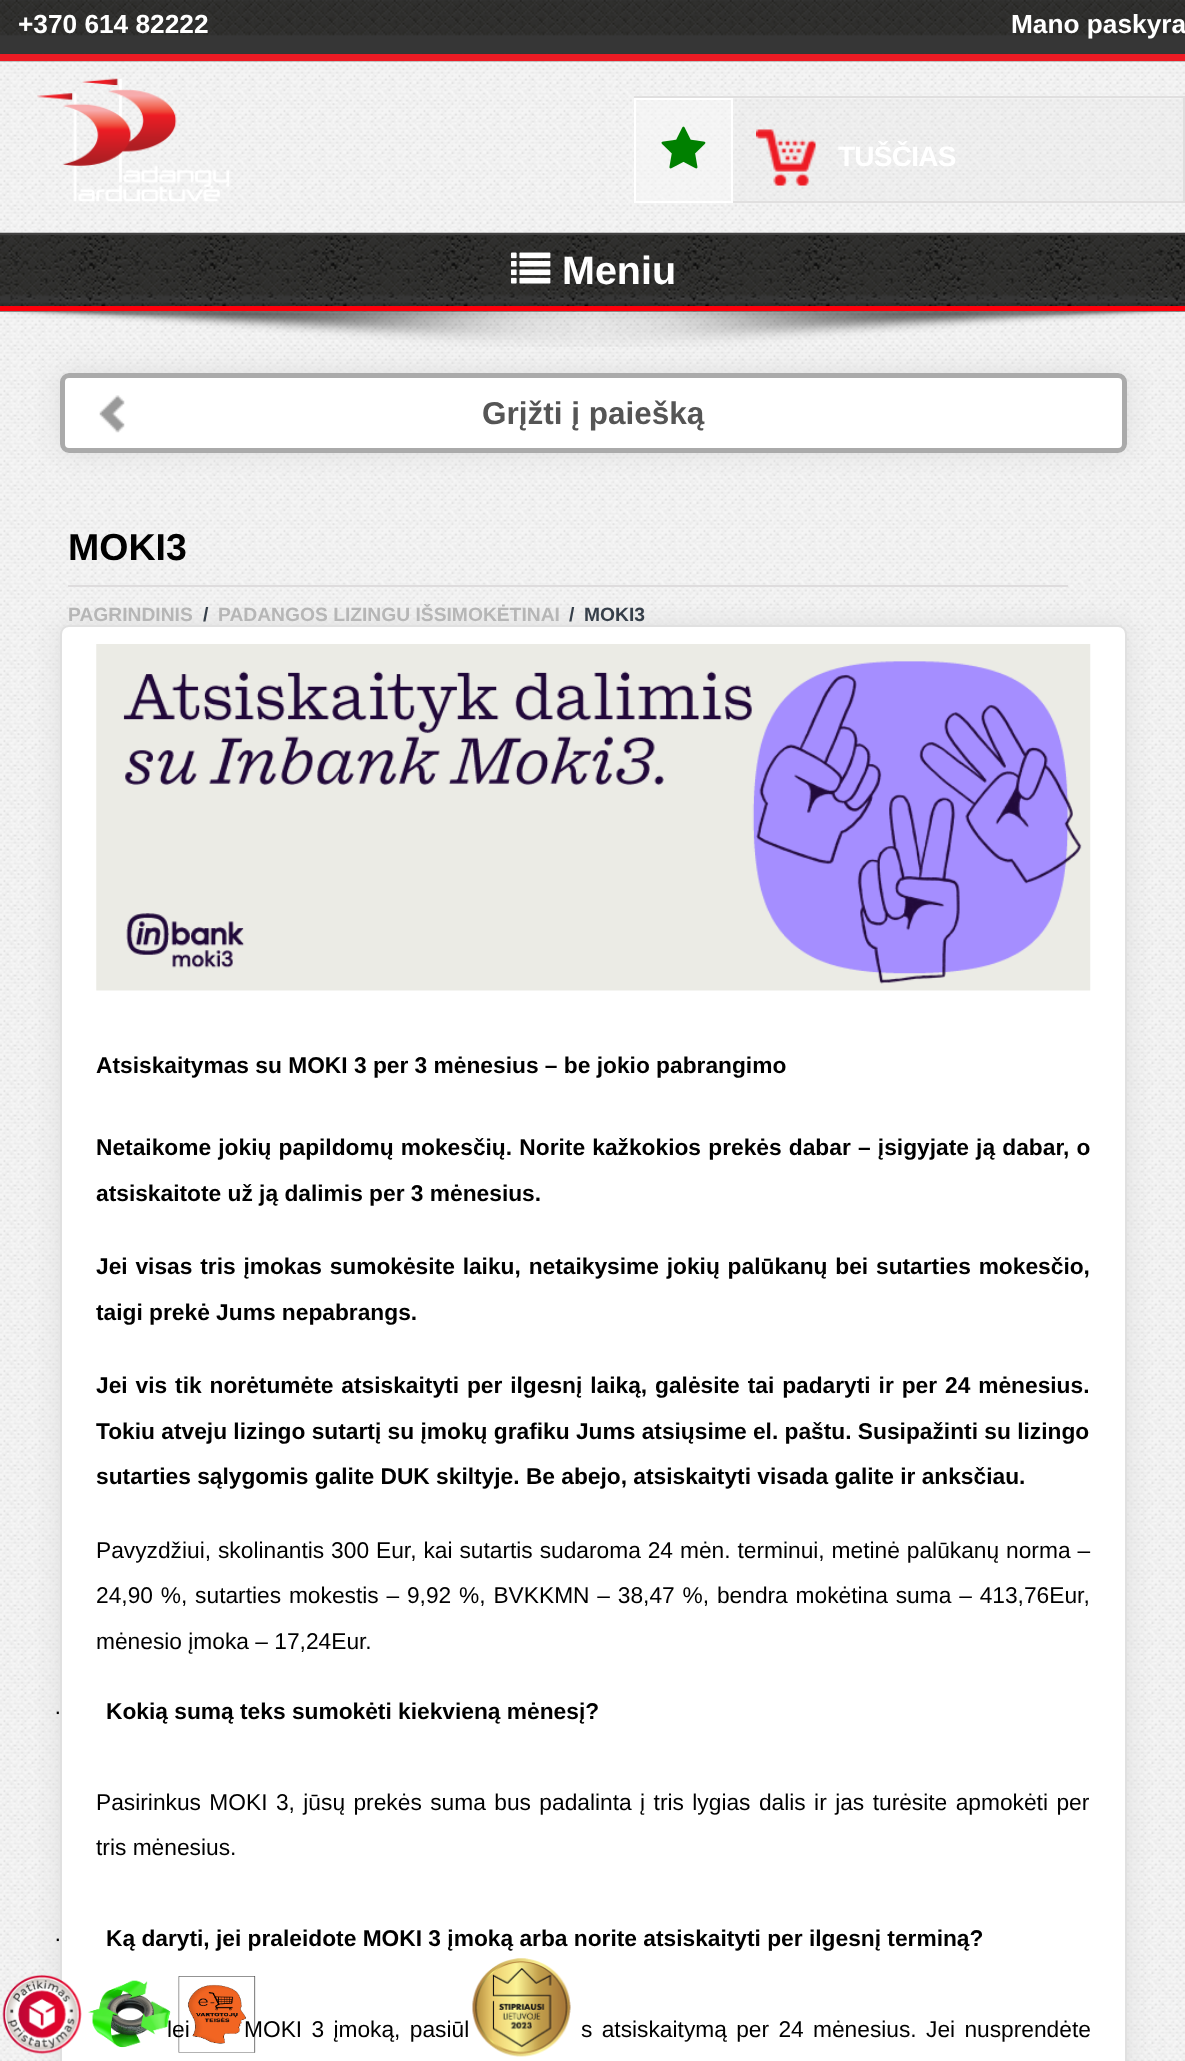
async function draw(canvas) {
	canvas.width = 1185;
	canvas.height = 2061;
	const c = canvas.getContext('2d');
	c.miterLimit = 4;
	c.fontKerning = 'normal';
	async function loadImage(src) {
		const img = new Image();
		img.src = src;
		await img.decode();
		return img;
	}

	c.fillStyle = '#fff';
	c.fillRect(0, 0, 1185, 2061);
	c.drawImage(await loadImage('img1.png'), 0, 61, 1185, 2000);
	c.drawImage(await loadImage('img2.png'), 0, 0, 1185, 62);
	c.fillStyle = '#ed1b24';
	c.fillRect(0, 54, 1185, 7);
	c.font = 'bold 26.25px Liberation Sans';
	c.fillStyle = '#fff';
	c.fillText('+370 614 82222', 18, 33);
	c.fillText('Mano paskyra', 1011, 33);
	c.drawImage(await loadImage('img3.png'), 37, 78, 193, 124);
	c.fillStyle = '#e1e1e133';
	c.fillRect(636, 99, 547, 102);
	c.strokeStyle = '#e0dfdf';
	c.lineWidth = 2;
	c.strokeRect(635, 97, 549, 105);
	c.fillStyle = '#ffffff66';
	c.beginPath();
	c.rect(635, 99, 97, 103);
	c.fill();
	c.strokeStyle = '#fff';
	c.stroke();
	c.drawImage(await loadImage('img4.png'), 661, 126, 45, 43);
	c.drawImage(await loadImage('img5.png'), 756, 129, 60, 57);
	c.letterSpacing = '-0.75px';
	c.font = 'bold 28px Liberation Sans';
	c.fillStyle = '#fff';
	c.fillText('TUŠČIAS', 838, 166);
	c.drawImage(await loadImage('img8.png'), 4, 311, 1175, 36);
	c.drawImage(await loadImage('img6.png'), 0, 232, 1185, 80);
	c.fillStyle = '#414040';
	c.fillRect(0, 233, 1185, 2);
	c.fillStyle = '#ff000b';
	c.fillRect(0, 306, 1185, 5);
	c.drawImage(await loadImage('img7.png'), 511, 252, 40, 32);
	c.letterSpacing = '0px';
	c.font = 'bold 39.5px Liberation Sans';
	c.fillStyle = '#fff';
	c.fillText('Meniu', 562, 284);
	c.fillStyle = '#ddd';
	c.filter = 'blur(13px)';
	c.beginPath();
	c.roundRect(60, 373, 1067, 80, 9);
	c.fill();
	c.filter = 'none';
	c.fillStyle = '#fff';
	c.beginPath();
	c.roundRect(60, 373, 1067, 80, 9);
	c.fill();
	c.drawImage(await loadImage('img9.png'), 99, 395, 26, 38);
	c.beginPath();
	c.roundRect(62.5, 375.5, 1062, 75, 6.5);
	c.strokeStyle = '#aaa';
	c.lineWidth = 5;
	c.stroke();
	c.font = 'bold 31.5px Liberation Sans';
	c.fillStyle = '#555';
	c.fillText('Grįžti į paiešką', 482, 424);
	c.fillStyle = '#dedcdd';
	c.fillRect(68, 585, 1000, 2);
	c.font = 'bold 37.5px Liberation Sans';
	c.fillStyle = '#000';
	c.fillText('MOKI3', 68, 560);
	c.fillStyle = '#ddd';
	c.filter = 'blur(13px)';
	c.beginPath();
	c.roundRect(60, 625, 1067, 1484, 9);
	c.fill();
	c.filter = 'none';
	c.font = 'bold 19.25px Liberation Sans';
	c.fillStyle = '#b6b6b6';
	c.fillText('PAGRINDINIS', 68, 621);
	c.fillStyle = '#363f4a';
	c.fillText('/', 203, 621);
	c.save();
	c.beginPath();
	c.rect(68, 604, 1059, 21);
	c.clip();
	c.fillStyle = '#b6b6b6';
	c.fillText('PADANGOS LIZINGU IŠSIMOKĖTINAI', 218, 621);
	c.restore();
	c.fillText('/', 569, 621);
	c.fillText('MOKI3', 584, 621);
	c.fillStyle = '#fff';
	c.beginPath();
	c.roundRect(61, 626, 1065, 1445, 8);
	c.fill();
	c.strokeStyle = '#e0e0e0';
	c.lineWidth = 2;
	c.stroke();
	c.drawImage(await loadImage('img10.png'), 96, 644, 995, 347);
	c.font = 'bold 22.75px Liberation Sans';
	c.fillStyle = '#000';
	c.fillText('Atsiskaitymas su MOKI 3 per 3 mėnesius – be jokio pabrangimo', 96, 1073);
	c.wordSpacing = '0.9px';
	c.fillText('Netaikome jokių papildomų mokesčių. Norite kažkokios prekės dabar – įsigyjate ją dabar, o', 96, 1155);
	c.wordSpacing = '0px';
	c.fillText('atsiskaitote už ją dalimis per 3 mėnesius.', 96, 1201);
	c.wordSpacing = '1.5px';
	c.fillText('Jei visas tris įmokas sumokėsite laiku, netaikysime jokių palūkanų bei sutarties mokesčio,', 96, 1274);
	c.wordSpacing = '0px';
	c.fillText('taigi prekė Jums nepabrangs.', 96, 1320);
	c.wordSpacing = '1.6px';
	c.fillText('Jei vis tik norėtumėte atsiskaityti per ilgesnį laiką, galėsite tai padaryti ir per 24 mėnesius.', 96, 1393);
	c.wordSpacing = '0px';
	c.fillText('Tokiu atveju lizingo sutartį su įmokų grafiku Jums atsiųsime el. paštu. Susipažinti su lizingo', 96, 1439);
	c.fillText('sutarties sąlygomis galite DUK skiltyje. Be abejo, atsiskaityti visada galite ir anksčiau.', 96, 1484);
	c.wordSpacing = '0.6px';
	c.font = '22.75px Liberation Sans';
	c.fillText('Pavyzdžiui, skolinantis 300 Eur, kai sutartis sudaroma 24 mėn. terminui, metinė palūkanų norma –', 96, 1558);
	c.wordSpacing = '1.5px';
	c.fillText('24,90 %, sutarties mokestis – 9,92 %, BVKKMN – 38,47 %, bendra mokėtina suma – 413,76Eur,', 96, 1603);
	c.wordSpacing = '0px';
	c.fillText('mėnesio įmoka – 17,24Eur.', 96, 1649);
	c.fillText('·', 54, 1719);
	c.font = 'bold 22.75px Liberation Sans';
	c.fillText('Kokią sumą teks sumokėti kiekvieną mėnesį?', 106, 1719);
	c.wordSpacing = '2.1px';
	c.font = '22.75px Liberation Sans';
	c.fillText('Pasirinkus MOKI 3, jūsų prekės suma bus padalinta į tris lygias dalis ir jas turėsite apmokėti per', 96, 1810);
	c.wordSpacing = '0px';
	c.fillText('tris mėnesius.', 96, 1855);
	c.fillText('·', 54, 1946);
	c.font = 'bold 22.75px Liberation Sans';
	c.fillText('Ką daryti, jei praleidote MOKI 3 įmoką arba norite atsiskaityti per ilgesnį terminą?', 106, 1946);
	c.wordSpacing = '3px';
	c.font = '22.75px Liberation Sans';
	for (const [text, x, y] of [
		['lei', 167, 2037],
		['MOKI 3 įmoką, pasiūl', 244, 2037],
		['s atsiskaitymą per 24 mėnesius. Jei nusprendėte', 581, 2037],
	]) {
		c.fillText(text, x, y);
	}
	c.drawImage(await loadImage('img11.png'), 2, 1974, 80, 80);
	c.drawImage(await loadImage('img12.png'), 88, 1980, 83, 68);
	c.drawImage(await loadImage('img13.png'), 178, 1976, 78, 77);
	c.drawImage(await loadImage('img14.png'), 472, 1958, 99, 99);
}

draw(document.querySelector('canvas'));
